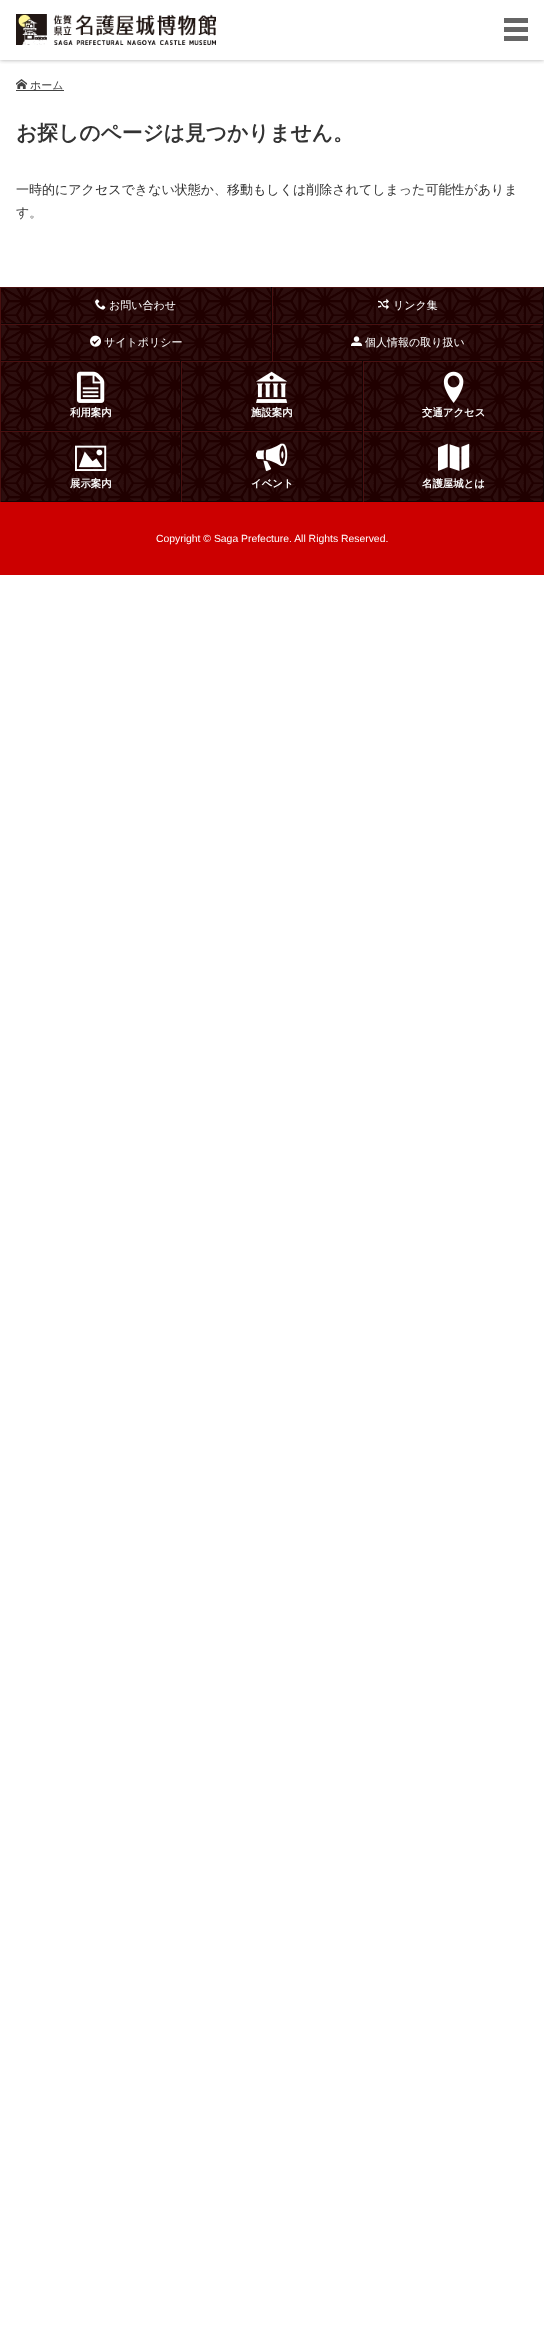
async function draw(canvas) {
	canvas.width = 544;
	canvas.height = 2339;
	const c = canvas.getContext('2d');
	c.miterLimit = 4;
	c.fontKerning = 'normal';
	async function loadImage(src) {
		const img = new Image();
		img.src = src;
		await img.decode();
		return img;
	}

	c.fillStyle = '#fff';
	c.fillRect(0, 0, 544, 2339);
	c.save();
	c.beginPath();
	c.rect(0, 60, 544, 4);
	c.clip();
	c.fillStyle = '#aaa';
	c.filter = 'blur(2px)';
	c.beginPath();
	c.rect(0, 0, 544, 60);
	c.fill();
	c.filter = 'none';
	c.restore();
	c.drawImage(await loadImage('img1.png'), 16, 14, 200, 31);
	c.drawImage(await loadImage('img2.png'), 504, 18, 24, 23);
	c.drawImage(await loadImage('img3.png'), 16, 79, 12, 10);
	c.fillStyle = '#444';
	c.fillRect(16, 90, 48, 1);
	c.font = '500 11px WenQuanYi Zen Hei';
	c.fillText('ホーム', 30, 89);
	c.font = 'bold 20.75px WenQuanYi Zen Hei';
	c.fillStyle = '#333';
	c.fillText('お探しのページは見つかりません。', 16, 140);
	c.font = '500 13px WenQuanYi Zen Hei';
	c.fillText('一時的にアクセスできない状態か、移動もしくは削除されてしまった可能性がありま', 16, 194);
	c.fillText('す。', 16, 217);
	c.drawImage(await loadImage('img4.png'), 1, 288, 542, 213);
	for (const [x, y, w, h, color] of [
		[0, 287, 544, 1, '#491010'],
		[271, 287, 1, 37, '#130404'],
		[0, 323, 272, 1, '#130404'],
		[0, 287, 1, 37, '#491010'],
	]) {
		c.fillStyle = color;
		c.fillRect(x, y, w, h);
	}
	c.drawImage(await loadImage('img5.png'), 95, 299, 11, 11);
	c.font = '500 11px WenQuanYi Zen Hei';
	c.fillStyle = '#fff';
	c.fillText('お問い合わせ', 109, 309);
	for (const [x, y, w, h, color] of [
		[543, 287, 1, 37, '#130404'],
		[272, 323, 272, 1, '#130404'],
		[272, 287, 1, 37, '#491010'],
	]) {
		c.fillStyle = color;
		c.fillRect(x, y, w, h);
	}
	c.drawImage(await loadImage('img6.png'), 378, 298, 11, 12);
	c.fillStyle = '#fff';
	c.fillText('リンク集', 393, 309);
	for (const [x, y, w, h, color] of [
		[0, 324, 544, 1, '#491010'],
		[271, 324, 1, 37, '#130404'],
		[0, 360, 272, 1, '#130404'],
		[0, 324, 1, 37, '#491010'],
	]) {
		c.fillStyle = color;
		c.fillRect(x, y, w, h);
	}
	c.drawImage(await loadImage('img7.png'), 90, 335, 11, 12);
	c.fillStyle = '#fff';
	c.fillText('サイトポリシー', 104, 346);
	for (const [x, y, w, h, color] of [
		[543, 324, 1, 37, '#130404'],
		[272, 360, 272, 1, '#130404'],
		[272, 324, 1, 37, '#491010'],
	]) {
		c.fillStyle = color;
		c.fillRect(x, y, w, h);
	}
	c.drawImage(await loadImage('img8.png'), 351, 336, 12, 10);
	c.fillStyle = '#fff';
	c.fillText('個人情報の取り扱い', 365, 346);
	for (const [x, y, w, h, color] of [
		[0, 361, 544, 1, '#491010'],
		[180, 361, 1, 70, '#130404'],
		[0, 430, 181, 1, '#130404'],
		[0, 361, 1, 70, '#491010'],
	]) {
		c.fillStyle = color;
		c.fillRect(x, y, w, h);
	}
	c.drawImage(await loadImage('img9.png'), 76, 371, 29, 32);
	c.font = 'bold 10.4px WenQuanYi Zen Hei';
	c.fillStyle = '#fff';
	c.fillText('利用案内', 70, 416);
	for (const [x, y, w, h, color] of [
		[362, 361, 1, 70, '#130404'],
		[181, 430, 182, 1, '#130404'],
		[181, 361, 1, 70, '#491010'],
	]) {
		c.fillStyle = color;
		c.fillRect(x, y, w, h);
	}
	c.drawImage(await loadImage('img10.png'), 256, 371, 32, 32);
	c.fillStyle = '#fff';
	c.fillText('施設案内', 251, 416);
	for (const [x, y, w, h, color] of [
		[543, 361, 1, 70, '#130404'],
		[363, 430, 181, 1, '#130404'],
		[363, 361, 1, 70, '#491010'],
	]) {
		c.fillStyle = color;
		c.fillRect(x, y, w, h);
	}
	c.drawImage(await loadImage('img11.png'), 443, 371, 21, 32);
	c.fillStyle = '#fff';
	c.fillText('交通アクセス', 422, 416);
	for (const [x, y, w, h, color] of [
		[0, 431, 544, 1, '#491010'],
		[180, 431, 1, 71, '#130404'],
		[0, 501, 181, 1, '#130404'],
		[0, 431, 1, 71, '#491010'],
	]) {
		c.fillStyle = color;
		c.fillRect(x, y, w, h);
	}
	c.drawImage(await loadImage('img12.png'), 75, 445, 32, 26);
	c.fillStyle = '#fff';
	c.fillText('展示案内', 70, 487);
	for (const [x, y, w, h, color] of [
		[362, 431, 1, 71, '#130404'],
		[181, 501, 182, 1, '#130404'],
		[181, 431, 1, 71, '#491010'],
	]) {
		c.fillStyle = color;
		c.fillRect(x, y, w, h);
	}
	c.drawImage(await loadImage('img13.png'), 256, 443, 32, 28);
	c.fillStyle = '#fff';
	c.fillText('イベント', 251, 487);
	for (const [x, y, w, h, color] of [
		[543, 431, 1, 71, '#130404'],
		[363, 501, 181, 1, '#130404'],
		[363, 431, 1, 71, '#491010'],
	]) {
		c.fillStyle = color;
		c.fillRect(x, y, w, h);
	}
	c.drawImage(await loadImage('img14.png'), 438, 443, 32, 28);
	c.fillStyle = '#fff';
	c.fillText('名護屋城とは', 422, 487);
	c.fillStyle = '#c00';
	c.fillRect(0, 502, 544, 73);
	c.font = '10.4px Liberation Sans';
	c.fillStyle = '#fff';
	c.fillText('Copyright © Saga Prefecture. All Rights Reserved.', 156, 542);
}

draw(document.querySelector('canvas'));
